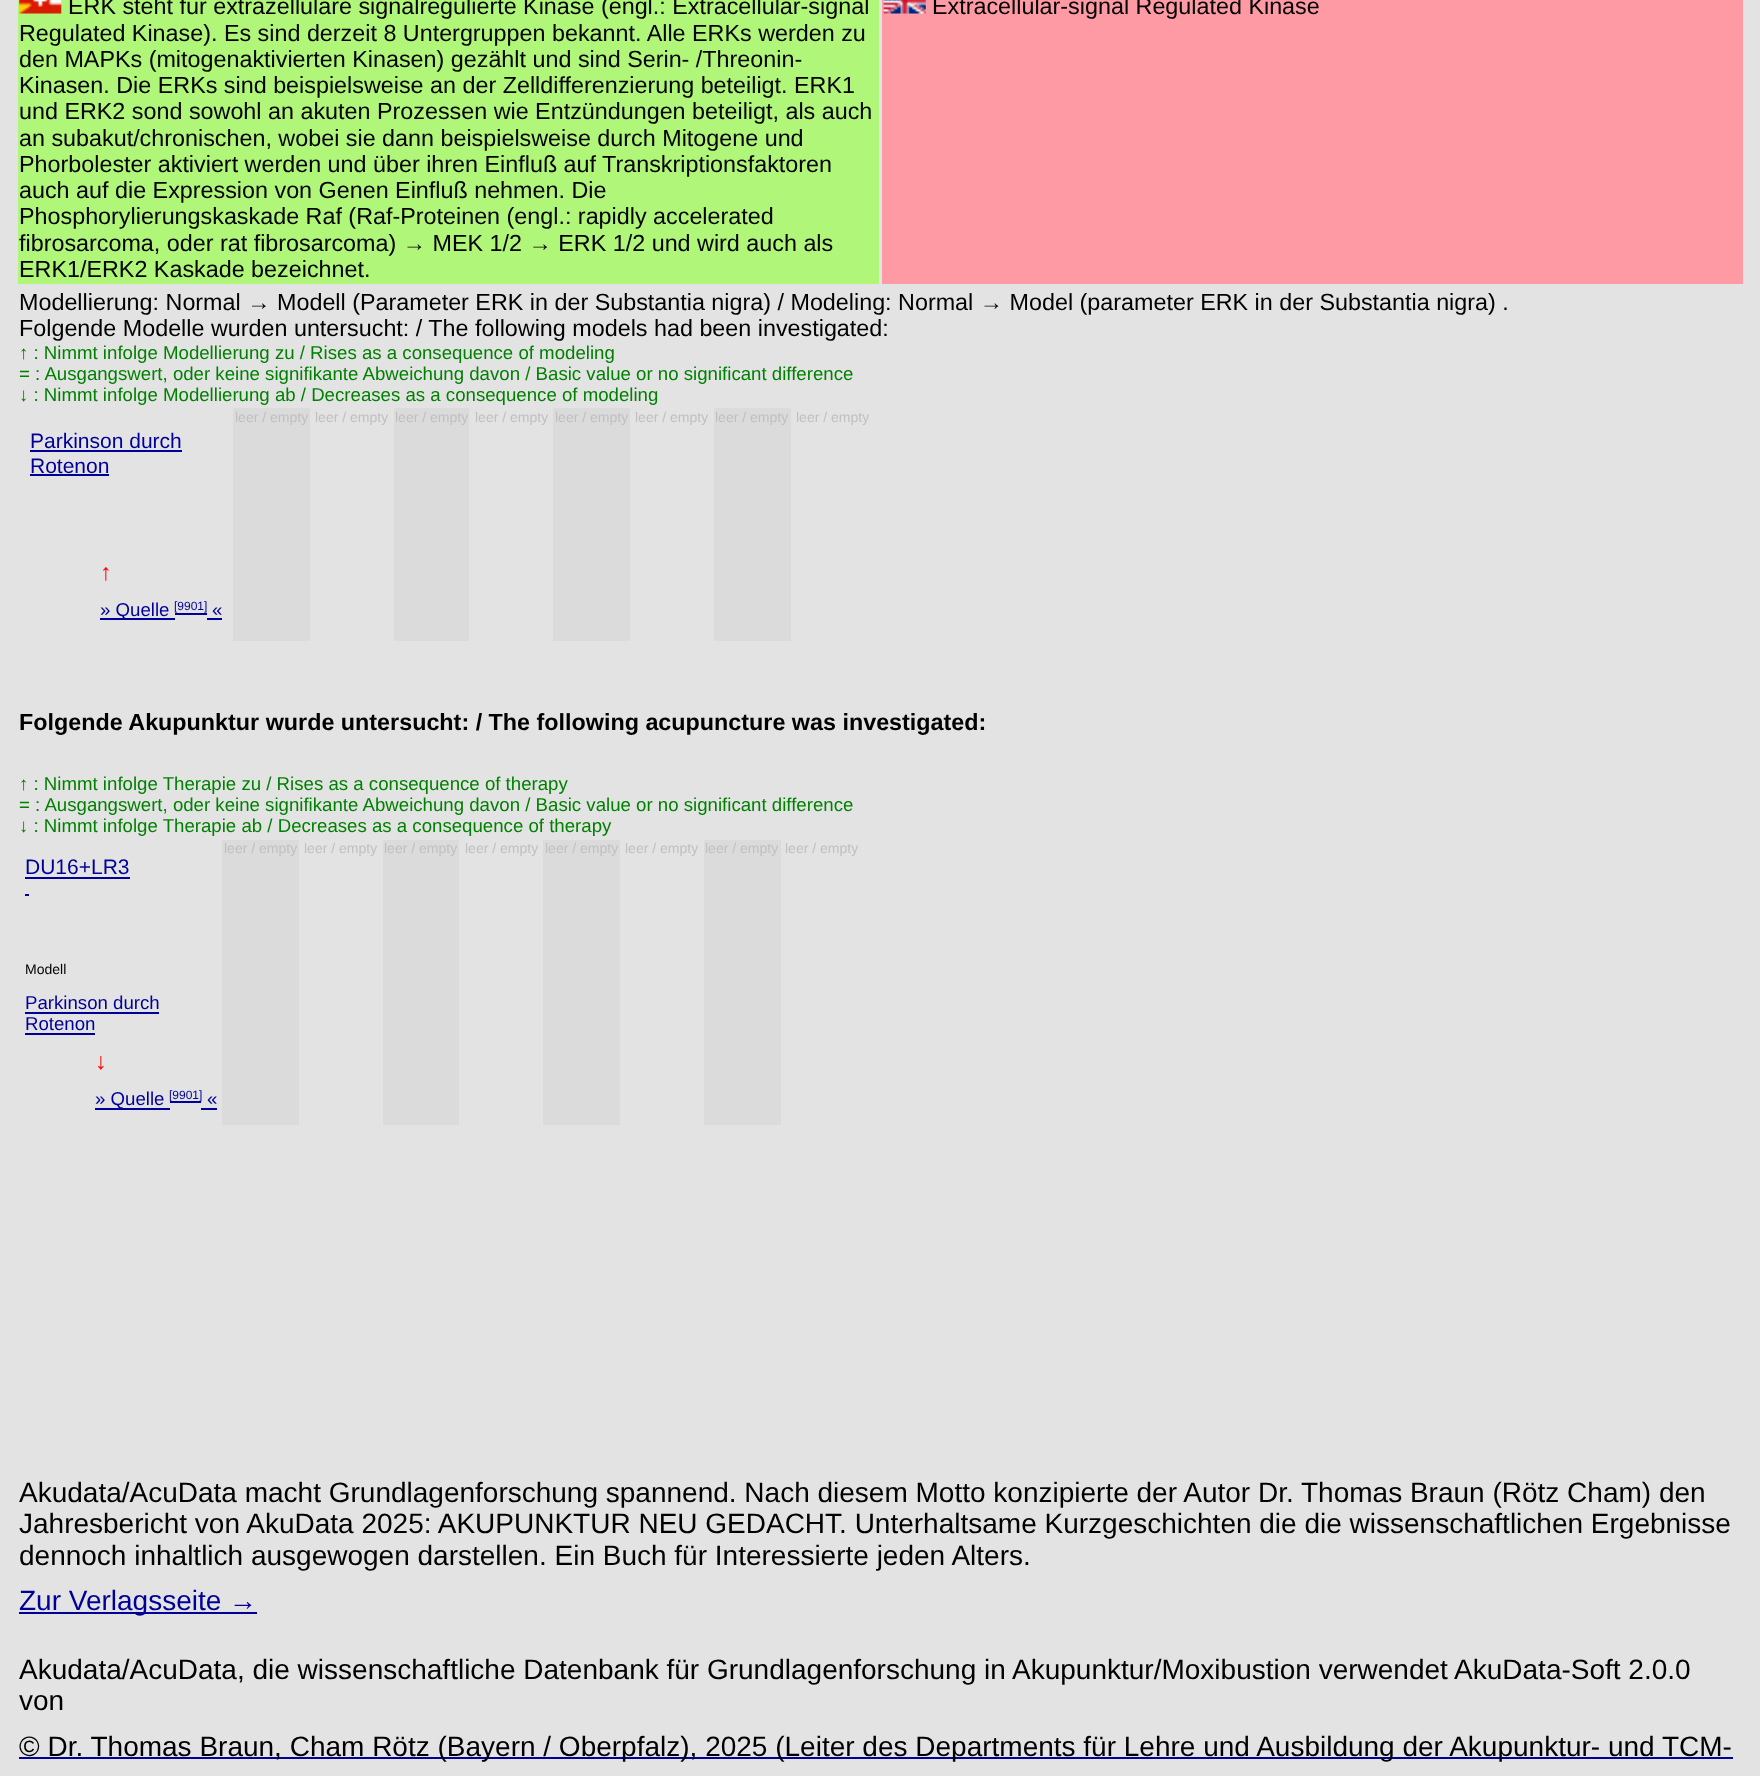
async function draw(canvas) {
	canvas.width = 1760;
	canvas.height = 1776;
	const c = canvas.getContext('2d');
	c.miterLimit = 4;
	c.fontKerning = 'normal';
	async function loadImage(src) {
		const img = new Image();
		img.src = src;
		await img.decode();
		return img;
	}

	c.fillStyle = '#e3e3e4';
	c.fillRect(0, 0, 1760, 1776);
	c.fillStyle = '#aff679';
	c.fillRect(18, 0, 861, 284);
	c.drawImage(await loadImage('img1.png'), 19, 0, 43, 14);
	c.font = '23.33px Liberation Sans';
	c.fillStyle = '#000';
	for (const [text, x, y] of [
		['ERK steht für extrazellulare signalregulierte Kinase (engl.: Extracellular-signal', 68, 14],
		['Regulated Kinase). Es sind derzeit 8 Untergruppen bekannt. Alle ERKs werden zu', 19, 41],
		['den MAPKs (mitogenaktivierten Kinasen) gezählt und sind Serin- /Threonin-', 19, 67],
		['Kinasen. Die ERKs sind beispielsweise an der Zelldifferenzierung beteiligt. ERK1', 19, 93],
		['und ERK2 sond sowohl an akuten Prozessen wie Entzündungen beteiligt, als auch', 19, 119],
		['an subakut/chronischen, wobei sie dann beispielsweise durch Mitogene und', 19, 146],
		['Phorbolester aktiviert werden und über ihren Einfluß auf Transkriptionsfaktoren', 19, 172],
		['auch auf die Expression von Genen Einfluß nehmen. Die', 19, 198],
		['Phosphorylierungskaskade Raf (Raf-Proteinen (engl.: rapidly accelerated', 19, 224],
		['fibrosarcoma, oder rat fibrosarcoma) → MEK 1/2 → ERK 1/2 und wird auch als', 19, 251],
		['ERK1/ERK2 Kaskade bezeichnet.', 19, 277],
	]) {
		c.fillText(text, x, y);
	}
	c.fillStyle = '#fd9aa4';
	c.fillRect(882, 0, 861, 284);
	c.drawImage(await loadImage('img2.png'), 883, 0, 43, 14);
	c.fillStyle = '#000';
	for (const [text, x, y] of [
		['Extracellular-signal Regulated Kinase', 932, 14],
		['Modellierung: Normal → Modell (Parameter ERK in der Substantia nigra) / Modeling: Normal → Model (parameter ERK in der Substantia nigra) .', 19, 310],
		['Folgende Modelle wurden untersucht: / The following models had been investigated:', 19, 336],
	]) {
		c.fillText(text, x, y);
	}
	c.font = '18.65px Liberation Sans';
	c.fillStyle = '#008000';
	for (const [text, x, y] of [
		['↑ : Nimmt infolge Modellierung zu / Rises as a consequence of modeling', 19, 359],
		['= : Ausgangswert, oder keine signifikante Abweichung davon / Basic value or no significant difference', 19, 380],
		['↓ : Nimmt infolge Modellierung ab / Decreases as a consequence of modeling', 19, 401],
	]) {
		c.fillText(text, x, y);
	}
	c.fillStyle = '#dbdbdb';
	c.fillRect(233, 408, 77, 233);
	c.font = '14px Liberation Sans';
	c.fillStyle = '#c0c0c0';
	c.fillText('leer / empty', 235, 422);
	c.fillText('leer / empty', 315, 422);
	c.fillStyle = '#dbdbdb';
	c.fillRect(394, 408, 75, 233);
	c.fillStyle = '#c0c0c0';
	c.fillText('leer / empty', 395, 422);
	c.fillText('leer / empty', 475, 422);
	c.fillStyle = '#dbdbdb';
	c.fillRect(553, 408, 77, 233);
	c.fillStyle = '#c0c0c0';
	c.fillText('leer / empty', 555, 422);
	c.fillText('leer / empty', 635, 422);
	c.fillStyle = '#dbdbdb';
	c.fillRect(714, 408, 77, 233);
	c.fillStyle = '#c0c0c0';
	c.fillText('leer / empty', 715, 422);
	c.fillText('leer / empty', 796, 422);
	c.font = '21px Liberation Sans';
	c.fillStyle = '#000098';
	c.fillText('Parkinson durch', 30, 448);
	c.fillRect(30, 450, 152, 2);
	c.fillText('Rotenon', 30, 473);
	c.fillRect(30, 474, 79, 2);
	c.font = 'bold 23.33px Liberation Sans';
	c.fillStyle = '#f00';
	c.fillText('↑', 100, 580);
	c.fillStyle = '#000098';
	c.fillRect(100, 618, 75, 2);
	c.font = '18.65px Liberation Sans';
	c.fillText('» Quelle', 100, 616);
	c.font = '12px Liberation Sans';
	c.fillText('[9901]', 174, 610);
	c.fillRect(175, 613, 32, 2);
	c.font = '18.65px Liberation Sans';
	c.fillText('«', 212, 616);
	c.fillRect(207, 618, 15, 2);
	c.font = 'bold 23.33px Liberation Sans';
	c.fillStyle = '#000';
	c.fillText('Folgende Akupunktur wurde untersucht: / The following acupuncture was investigated:', 19, 730);
	c.font = '18.65px Liberation Sans';
	c.fillStyle = '#008000';
	for (const [text, x, y] of [
		['↑ : Nimmt infolge Therapie zu / Rises as a consequence of therapy', 19, 790],
		['= : Ausgangswert, oder keine signifikante Abweichung davon / Basic value or no significant difference', 19, 811],
		['↓ : Nimmt infolge Therapie ab / Decreases as a consequence of therapy', 19, 832],
	]) {
		c.fillText(text, x, y);
	}
	c.fillStyle = '#dbdbdb';
	c.fillRect(222, 840, 77, 285);
	c.font = '14px Liberation Sans';
	c.fillStyle = '#c0c0c0';
	c.fillText('leer / empty', 224, 853);
	c.fillText('leer / empty', 304, 853);
	c.fillStyle = '#dbdbdb';
	c.fillRect(383, 840, 76, 285);
	c.fillStyle = '#c0c0c0';
	c.fillText('leer / empty', 384, 853);
	c.fillText('leer / empty', 465, 853);
	c.fillStyle = '#dbdbdb';
	c.fillRect(543, 840, 77, 285);
	c.fillStyle = '#c0c0c0';
	c.fillText('leer / empty', 545, 853);
	c.fillText('leer / empty', 625, 853);
	c.fillStyle = '#dbdbdb';
	c.fillRect(704, 840, 77, 285);
	c.fillStyle = '#c0c0c0';
	c.fillText('leer / empty', 705, 853);
	c.fillText('leer / empty', 785, 853);
	c.font = '21px Liberation Sans';
	c.fillStyle = '#000098';
	c.fillText('DU16+LR3', 25, 874);
	c.fillRect(25, 877, 105, 2);
	c.fillRect(25, 894, 4, 2);
	c.font = '14px Liberation Sans';
	c.fillStyle = '#000';
	c.fillText('Modell', 25, 974);
	c.font = '18.65px Liberation Sans';
	c.fillStyle = '#000098';
	c.fillText('Parkinson durch', 25, 1009);
	c.fillRect(25, 1012, 134, 2);
	c.fillText('Rotenon', 25, 1030);
	c.fillRect(25, 1033, 70, 2);
	c.font = 'bold 23.33px Liberation Sans';
	c.fillStyle = '#f00';
	c.fillText('↓', 95, 1069);
	c.fillStyle = '#000098';
	c.fillRect(95, 1108, 75, 2);
	c.font = '18.65px Liberation Sans';
	c.fillText('» Quelle', 95, 1105);
	c.fillRect(170, 1101, 31, 2);
	c.font = '12px Liberation Sans';
	c.fillText('[9901]', 169, 1099);
	c.font = '18.65px Liberation Sans';
	c.fillText('«', 207, 1105);
	c.fillRect(201, 1108, 16, 2);
	c.font = '28px Liberation Sans';
	c.fillStyle = '#000';
	for (const [text, x, y] of [
		['Akudata/AcuData macht Grundlagenforschung spannend. Nach diesem Motto konzipierte der Autor Dr. Thomas Braun (Rötz Cham) den', 19, 1502],
		['Jahresbericht von AkuData 2025: AKUPUNKTUR NEU GEDACHT. Unterhaltsame Kurzgeschichten die die wissenschaftlichen Ergebnisse', 19, 1533],
		['dennoch inhaltlich ausgewogen darstellen. Ein Buch für Interessierte jeden Alters.', 19, 1565],
	]) {
		c.fillText(text, x, y);
	}
	c.fillStyle = '#000098';
	c.fillRect(19, 1612, 238, 2);
	c.fillText('Zur Verlagsseite →', 19, 1610);
	c.fillStyle = '#000';
	c.fillText('Akudata/AcuData, die wissenschaftliche Datenbank für Grundlagenforschung in Akupunktur/Moxibustion verwendet AkuData-Soft 2.0.0', 19, 1679);
	c.fillText('von', 19, 1710);
	c.fillStyle = '#000098';
	c.fillRect(19, 1757, 1714, 2);
	c.fillStyle = '#000';
	c.fillText('© Dr. Thomas Braun, Cham Rötz (Bayern / Oberpfalz), 2025 (Leiter des Departments für Lehre und Ausbildung der Akupunktur- und TCM-', 19, 1756);
}

draw(document.querySelector('canvas'));
